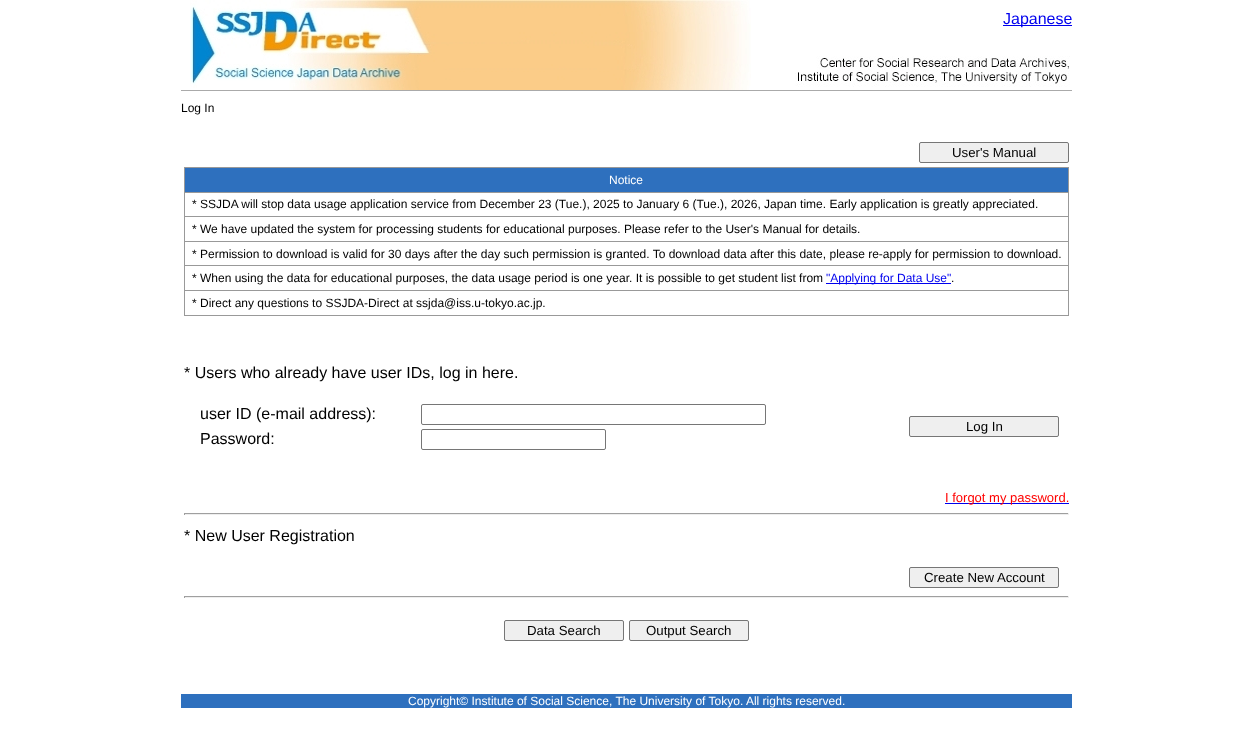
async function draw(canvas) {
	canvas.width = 1253;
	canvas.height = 746;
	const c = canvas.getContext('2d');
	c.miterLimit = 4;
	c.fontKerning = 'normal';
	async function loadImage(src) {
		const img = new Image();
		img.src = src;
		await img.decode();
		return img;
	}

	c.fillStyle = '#fff';
	c.fillRect(0, 0, 1253, 746);
	c.drawImage(await loadImage('img1.png'), 190, 0, 561, 90);
	c.drawImage(await loadImage('img2.png'), 795, 56, 275, 31);
	c.fillStyle = '#00e';
	c.fillRect(1003, 25, 69, 1);
	c.font = '16px Liberation Sans';
	c.fillText('Japanese', 1003, 24);
	c.fillStyle = '#aaa';
	c.fillRect(181, 90, 891, 1);
	c.font = '12px Liberation Sans';
	c.fillStyle = '#000';
	c.fillText('Log In', 181, 112);
	c.fillStyle = '#efefef';
	c.beginPath();
	c.roundRect(919.5, 142.5, 149, 20, 1.5);
	c.fill();
	c.strokeStyle = '#767676';
	c.stroke();
	c.font = '13.25px Liberation Sans';
	c.fillStyle = '#000';
	c.fillText('User\'s Manual', 952, 157);
	for (const [x, y, w, h, color] of [
		[185, 168, 883, 24, '#2e70be'],
		[184, 167, 885, 1, '#999'],
		[184, 192, 885, 1, '#999'],
		[184, 216, 885, 1, '#999'],
		[184, 241, 885, 1, '#999'],
		[184, 265, 885, 1, '#999'],
		[184, 290, 885, 1, '#999'],
		[1068, 290, 1, 26, '#999'],
		[1068, 265, 1, 26, '#999'],
		[1068, 241, 1, 25, '#999'],
		[1068, 216, 1, 26, '#999'],
		[1068, 192, 1, 25, '#999'],
		[1068, 167, 1, 26, '#999'],
		[184, 315, 885, 1, '#999'],
		[184, 290, 1, 26, '#999'],
		[184, 265, 1, 26, '#999'],
		[184, 241, 1, 25, '#999'],
		[184, 216, 1, 26, '#999'],
		[184, 192, 1, 25, '#999'],
		[184, 167, 1, 26, '#999'],
	]) {
		c.fillStyle = color;
		c.fillRect(x, y, w, h);
	}
	c.font = '12px Liberation Sans';
	c.fillStyle = '#fff';
	c.fillText('Notice', 609, 184);
	c.fillStyle = '#000';
	for (const [text, x, y] of [
		['* SSJDA will stop data usage application service from December 23 (Tue.), 2025 to January 6 (Tue.), 2026, Japan time. Early application is greatly appreciated.', 192, 208],
		['* We have updated the system for processing students for educational purposes. Please refer to the User\'s Manual for details.', 192, 233],
		['* Permission to download is valid for 30 days after the day such permission is granted. To download data after this date, please re-apply for permission to download.', 192, 258],
		['* When using the data for educational purposes, the data usage period is one year. It is possible to get student list from', 192, 282],
	]) {
		c.fillText(text, x, y);
	}
	c.fillStyle = '#00e';
	c.fillRect(826, 283, 125, 1);
	c.fillText('"Applying for Data Use"', 826, 282);
	c.fillStyle = '#000';
	c.fillText('.', 951, 282);
	c.fillText('* Direct any questions to SSJDA-Direct at ssjda@iss.u-tokyo.ac.jp.', 192, 307);
	c.font = '16px Liberation Sans';
	c.fillText('* Users who already have user IDs, log in here.', 184, 378);
	c.fillText('user ID (e-mail address):', 200, 419);
	c.beginPath();
	c.roundRect(421.5, 404.5, 344, 20, 1.5);
	c.stroke();
	c.fillStyle = '#efefef';
	c.beginPath();
	c.roundRect(909.5, 416.5, 149, 20, 1.5);
	c.fill();
	c.stroke();
	c.font = '13.25px Liberation Sans';
	c.fillStyle = '#000';
	c.fillText('Log In', 966, 431);
	c.font = '16px Liberation Sans';
	c.fillText('Password:', 200, 444);
	c.beginPath();
	c.roundRect(421.5, 429.5, 184, 20, 1.5);
	c.stroke();
	c.fillStyle = '#00e';
	c.fillRect(945, 503, 124, 1);
	c.font = '13px Liberation Sans';
	c.fillStyle = '#f00';
	c.fillText('I forgot my password.', 945, 502);
	for (const [x, y, w, h, color] of [
		[184, 513, 885, 1, '#9f9f9f'],
		[1068, 513, 1, 2, '#eee'],
		[184, 514, 885, 1, '#eee'],
		[184, 513, 1, 2, '#9f9f9f'],
	]) {
		c.fillStyle = color;
		c.fillRect(x, y, w, h);
	}
	c.font = '16px Liberation Sans';
	c.fillStyle = '#000';
	c.fillText('* New User Registration', 184, 541);
	c.fillStyle = '#efefef';
	c.beginPath();
	c.roundRect(909.5, 567.5, 149, 20, 1.5);
	c.fill();
	c.stroke();
	c.font = '13.25px Liberation Sans';
	c.fillStyle = '#000';
	c.fillText('Create New Account', 924, 582);
	for (const [x, y, w, h, color] of [
		[184, 596, 885, 1, '#9f9f9f'],
		[1068, 596, 1, 2, '#eee'],
		[184, 597, 885, 1, '#eee'],
		[184, 596, 1, 2, '#9f9f9f'],
	]) {
		c.fillStyle = color;
		c.fillRect(x, y, w, h);
	}
	c.fillStyle = '#efefef';
	c.beginPath();
	c.roundRect(504.5, 620.5, 119, 20, 1.5);
	c.fill();
	c.stroke();
	c.fillStyle = '#000';
	c.fillText('Data Search', 527, 635);
	c.fillStyle = '#efefef';
	c.beginPath();
	c.roundRect(629.5, 620.5, 119, 20, 1.5);
	c.fill();
	c.stroke();
	c.fillStyle = '#000';
	c.fillText('Output Search', 646, 635);
	c.fillStyle = '#2e70be';
	c.fillRect(181, 694, 891, 14);
	c.font = '12px Liberation Sans';
	c.fillStyle = '#fff';
	c.fillText('Copyright© Institute of Social Science, The University of Tokyo. All rights reserved.', 408, 705);
}

draw(document.querySelector('canvas'));
